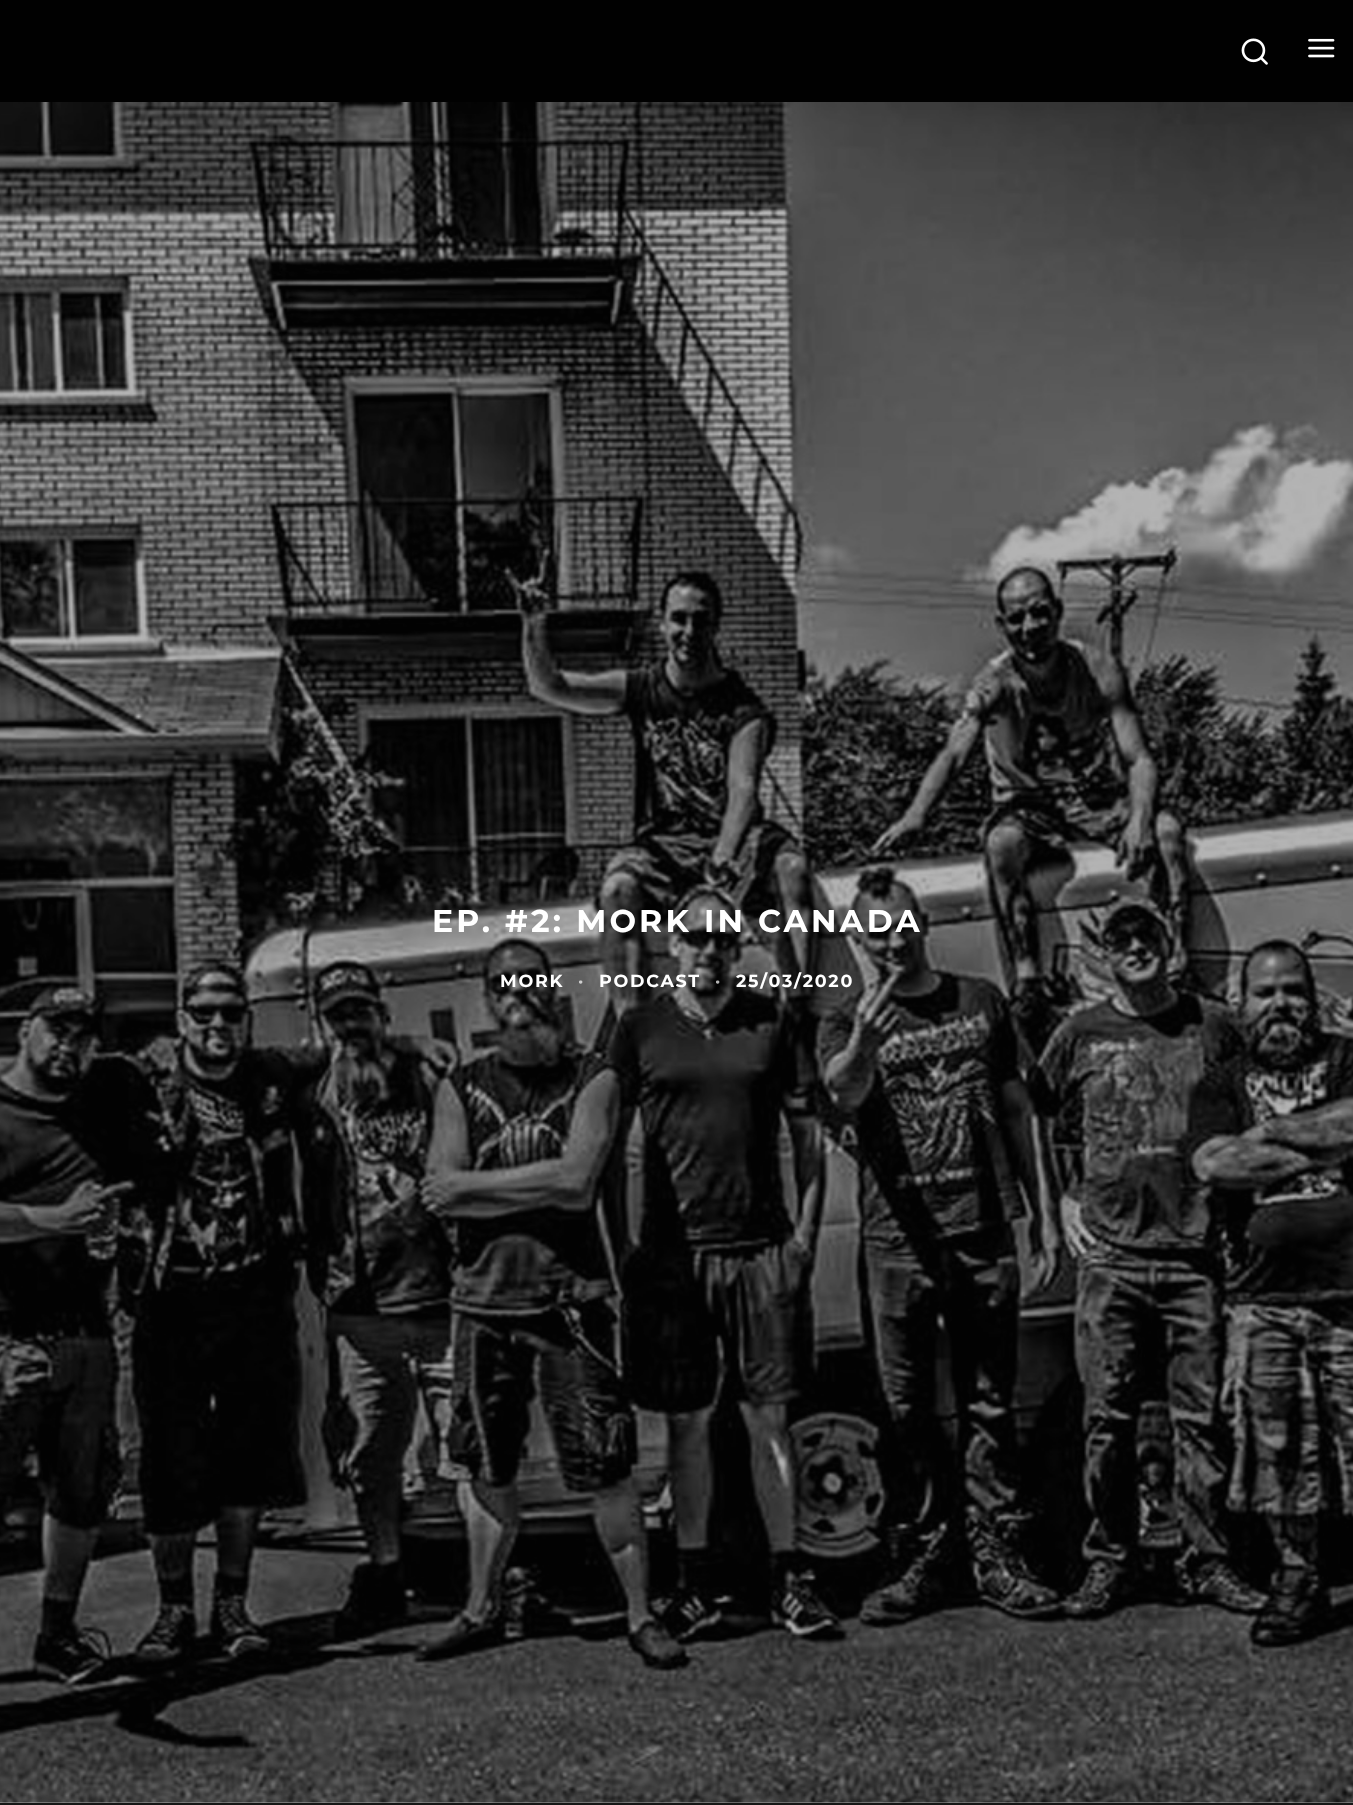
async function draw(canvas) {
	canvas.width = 1353;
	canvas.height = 1805;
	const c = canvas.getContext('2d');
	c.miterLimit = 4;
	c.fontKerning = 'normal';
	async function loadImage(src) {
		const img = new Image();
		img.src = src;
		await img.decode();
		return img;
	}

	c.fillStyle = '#161616';
	c.fillRect(0, 0, 1353, 1805);
	c.fillStyle = '#010101';
	c.fillRect(0, 0, 1353, 102);
	c.drawImage(await loadImage('img1.png'), 1241, 38, 27, 27);
	c.drawImage(await loadImage('img2.png'), 1308, 38, 27, 20);
	c.fillStyle = '#a8a8a8';
	c.fillRect(0, 1802, 1353, 1);
	c.drawImage(await loadImage('img3.png'), 0, 102, 1353, 1701);
	c.letterSpacing = '3.15px';
	c.font = 'bold 31.5px Montserrat';
	c.fillStyle = '#fff';
	c.fillText('EP. #2: MORK IN CANADA', 432, 932);
	c.letterSpacing = '1.75px';
	c.font = 'bold 17.5px Montserrat';
	c.fillText('MORK', 500, 987);
	c.fillStyle = '#cfcfcf';
	c.fillText('·', 578, 987);
	c.fillStyle = '#fff';
	c.fillText('PODCAST', 599, 987);
	c.fillStyle = '#b4b4b4';
	c.fillText('·', 715, 987);
	c.fillStyle = '#fff';
	c.fillText('25/03/2020', 736, 987);
}

draw(document.querySelector('canvas'));
